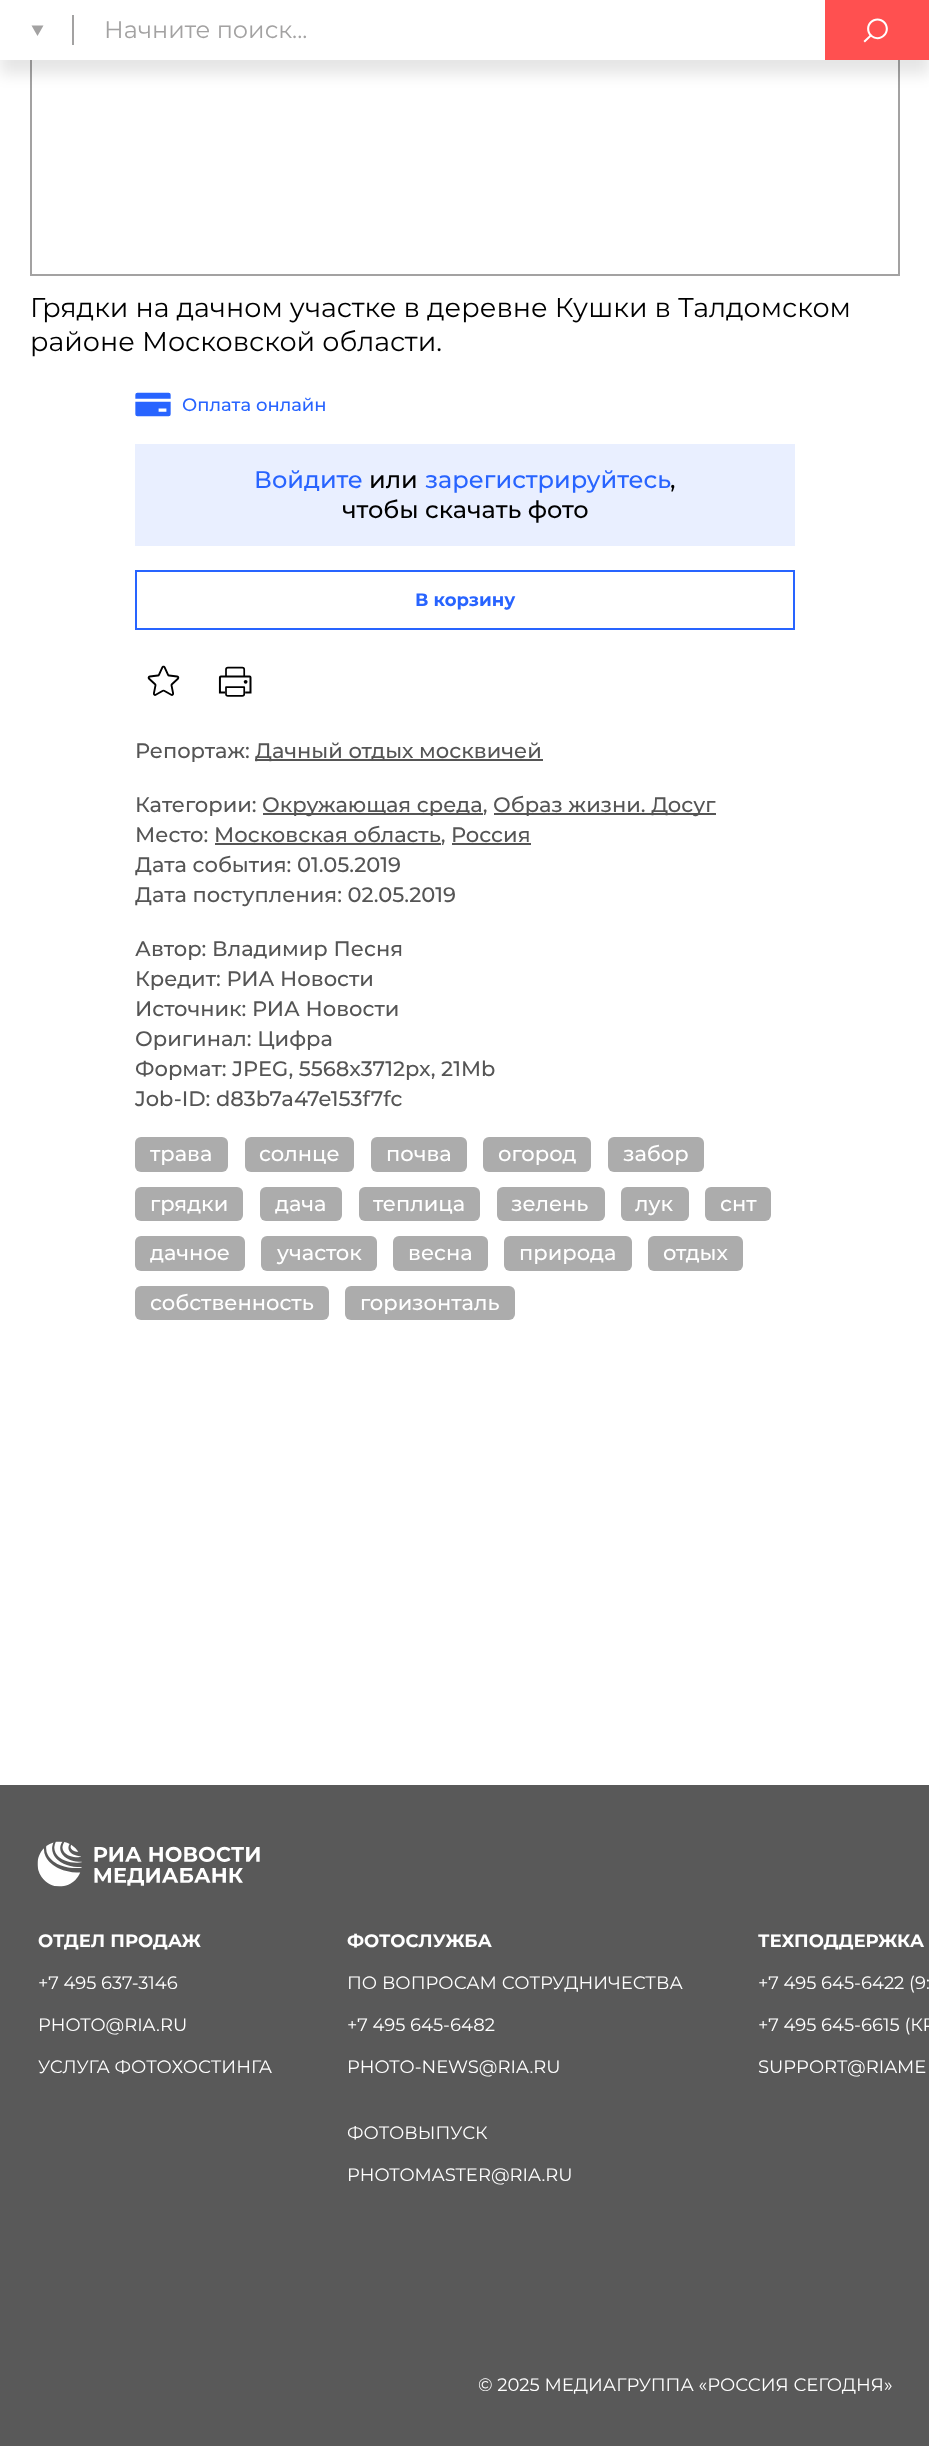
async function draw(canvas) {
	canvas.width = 929;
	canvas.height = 2446;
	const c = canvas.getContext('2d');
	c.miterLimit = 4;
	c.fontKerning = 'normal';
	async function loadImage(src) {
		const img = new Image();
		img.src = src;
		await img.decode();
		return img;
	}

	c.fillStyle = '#fff';
	c.fillRect(0, 0, 929, 2446);
	c.strokeStyle = '#a3a2a2';
	c.lineWidth = 2;
	c.strokeRect(31, -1, 868, 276);
	c.fillStyle = '#0000001a';
	c.filter = 'blur(7.5px)';
	c.beginPath();
	c.rect(0, -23, 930, 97);
	c.fill();
	c.filter = 'none';
	c.fillStyle = '#fff';
	c.fillRect(0, 0, 825, 60);
	c.fillStyle = '#a3a2a2';
	c.beginPath();
	c.moveTo(31.5, 25.5);
	c.lineTo(43.5, 25.5);
	c.lineTo(37.5, 36);
	c.closePath();
	c.fill();
	c.fillRect(72, 15, 2, 30);
	c.font = '24px Montserrat';
	c.fillText('Начните поиск...', 104, 38);
	c.fillStyle = '#ff5050';
	c.fillRect(825, 0, 104, 60);
	c.drawImage(await loadImage('img1.png'), 863, 18, 25, 25);
	c.font = '27px Montserrat';
	c.fillStyle = '#000';
	c.fillText('Грядки на дачном участке в деревне Кушки в Талдомском', 30, 317);
	c.fillText('районе Московской области.', 30, 351);
	c.drawImage(await loadImage('img2.png'), 135, 392, 36, 25);
	c.font = '500 18px Montserrat';
	c.fillStyle = '#2864ff';
	c.fillText('Оплата онлайн', 182, 411);
	c.fillStyle = '#e9efff';
	c.fillRect(135, 444, 660, 102);
	c.font = '500 24px Montserrat';
	c.fillStyle = '#2864ff';
	c.fillText('Войдите', 254, 488);
	c.fillStyle = '#000';
	c.fillText('или', 369, 488);
	c.fillStyle = '#2864ff';
	c.fillText('зарегистрируйтесь', 425, 488);
	c.fillStyle = '#000';
	c.fillText(',', 670, 488);
	c.fillText('чтобы скачать фото', 342, 518);
	c.strokeStyle = '#2864ff';
	c.strokeRect(136, 571, 658, 58);
	c.font = 'bold 18px Montserrat';
	c.fillStyle = '#2864ff';
	c.fillText('В корзину', 415, 606);
	c.drawImage(await loadImage('img3.png'), 147, 665, 33, 31);
	c.drawImage(await loadImage('img4.png'), 218, 666, 34, 31);
	c.font = '500 21px Montserrat';
	c.fillStyle = '#555';
	c.fillText('Репортаж:', 135, 758);
	c.fillRect(255, 759, 288, 2);
	c.fillText('Дачный отдых москвичей', 255, 758);
	c.fillText('Категории:', 135, 812);
	c.fillRect(263, 813, 220, 2);
	c.fillText('Окружающая среда,', 262, 812);
	c.fillRect(494, 813, 222, 2);
	c.fillText('Образ жизни. Досуг', 493, 812);
	c.fillText('Место: Московская область, Россия', 135, 842);
	c.fillRect(215, 843, 226, 2);
	c.fillRect(452, 843, 79, 2);
	for (const [text, x, y] of [
		['Дата события: 01.05.2019', 135, 872],
		['Дата поступления: 02.05.2019', 135, 902],
		['Автор: Владимир Песня', 135, 956],
		['Кредит: РИА Новости', 135, 986],
		['Источник: РИА Новости', 135, 1016],
		['Оригинал: Цифра', 135, 1046],
		['Формат: JPEG, 5568x3712px, 21Mb', 135, 1076],
		['Job-ID: d83b7a47e153f7fc', 135, 1106],
	]) {
		c.fillText(text, x, y);
	}
	c.fillStyle = '#acacac';
	c.beginPath();
	c.roundRect(135, 1137, 93, 35, 6);
	c.fill();
	c.fillStyle = '#fff';
	c.fillText('трава', 150, 1161);
	c.fillStyle = '#acacac';
	c.beginPath();
	c.roundRect(245, 1137, 109, 35, 6);
	c.fill();
	c.fillStyle = '#fff';
	c.fillText('солнце', 259, 1161);
	c.fillStyle = '#acacac';
	c.beginPath();
	c.roundRect(371, 1137, 96, 35, 6);
	c.fill();
	c.fillStyle = '#fff';
	c.fillText('почва', 386, 1161);
	c.fillStyle = '#acacac';
	c.beginPath();
	c.roundRect(483, 1137, 108, 35, 6);
	c.fill();
	c.fillStyle = '#fff';
	c.fillText('огород', 498, 1161);
	c.fillStyle = '#acacac';
	c.beginPath();
	c.roundRect(608, 1137, 96, 35, 6);
	c.fill();
	c.fillStyle = '#fff';
	c.fillText('забор', 623, 1161);
	c.fillStyle = '#acacac';
	c.beginPath();
	c.roundRect(135, 1187, 108, 34, 6);
	c.fill();
	c.fillStyle = '#fff';
	c.fillText('грядки', 150, 1211);
	c.fillStyle = '#acacac';
	c.beginPath();
	c.roundRect(260, 1187, 82, 34, 6);
	c.fill();
	c.fillStyle = '#fff';
	c.fillText('дача', 275, 1211);
	c.fillStyle = '#acacac';
	c.beginPath();
	c.roundRect(359, 1187, 121, 34, 6);
	c.fill();
	c.fillStyle = '#fff';
	c.fillText('теплица', 373, 1211);
	c.fillStyle = '#acacac';
	c.beginPath();
	c.roundRect(497, 1187, 108, 34, 6);
	c.fill();
	c.fillStyle = '#fff';
	c.fillText('зелень', 511, 1211);
	c.fillStyle = '#acacac';
	c.beginPath();
	c.roundRect(621, 1187, 68, 34, 6);
	c.fill();
	c.fillStyle = '#fff';
	c.fillText('лук', 635, 1211);
	c.fillStyle = '#acacac';
	c.beginPath();
	c.roundRect(705, 1187, 66, 34, 6);
	c.fill();
	c.fillStyle = '#fff';
	c.fillText('снт', 720, 1211);
	c.fillStyle = '#acacac';
	c.beginPath();
	c.roundRect(135, 1236, 110, 35, 6);
	c.fill();
	c.fillStyle = '#fff';
	c.fillText('дачное', 150, 1260);
	c.fillStyle = '#acacac';
	c.beginPath();
	c.roundRect(261, 1236, 116, 35, 6);
	c.fill();
	c.fillStyle = '#fff';
	c.fillText('участок', 277, 1260);
	c.fillStyle = '#acacac';
	c.beginPath();
	c.roundRect(393, 1236, 95, 35, 6);
	c.fill();
	c.fillStyle = '#fff';
	c.fillText('весна', 408, 1260);
	c.fillStyle = '#acacac';
	c.beginPath();
	c.roundRect(504, 1236, 128, 35, 6);
	c.fill();
	c.fillStyle = '#fff';
	c.fillText('природа', 519, 1260);
	c.fillStyle = '#acacac';
	c.beginPath();
	c.roundRect(648, 1236, 95, 35, 6);
	c.fill();
	c.fillStyle = '#fff';
	c.fillText('отдых', 663, 1260);
	c.fillStyle = '#acacac';
	c.beginPath();
	c.roundRect(135, 1286, 194, 34, 6);
	c.fill();
	c.fillStyle = '#fff';
	c.fillText('собственность', 150, 1310);
	c.fillStyle = '#acacac';
	c.beginPath();
	c.roundRect(345, 1286, 170, 34, 6);
	c.fill();
	c.fillStyle = '#fff';
	c.fillText('горизонталь', 360, 1310);
	c.fillStyle = '#595959';
	c.fillRect(0, 1785, 929, 661);
	c.drawImage(await loadImage('img5.png'), 37, 1841, 223, 46);
	c.font = 'bold 18px Montserrat';
	c.fillStyle = '#fff';
	c.fillText('ОТДЕЛ ПРОДАЖ', 38, 1947);
	c.font = '18px Montserrat';
	for (const [text, x, y] of [
		['+7 495 637-3146', 38, 1989],
		['PHOTO@RIA.RU', 38, 2031],
		['УСЛУГА ФОТОХОСТИНГА', 38, 2073],
	]) {
		c.fillText(text, x, y);
	}
	c.font = 'bold 18px Montserrat';
	c.fillText('ФОТОСЛУЖБА', 347, 1947);
	c.font = '18px Montserrat';
	for (const [text, x, y] of [
		['ПО ВОПРОСАМ СОТРУДНИЧЕСТВА', 347, 1989],
		['+7 495 645-6482', 347, 2031],
		['PHOTO-NEWS@RIA.RU', 347, 2073],
		['ФОТОВЫПУСК', 347, 2139],
		['PHOTOMASTER@RIA.RU', 347, 2181],
	]) {
		c.fillText(text, x, y);
	}
	c.font = 'bold 18px Montserrat';
	c.fillText('ТЕХПОДДЕРЖКА', 758, 1947);
	c.font = '18px Montserrat';
	for (const [text, x, y] of [
		['+7 495 645-6422 (9:', 758, 1989],
		['+7 495 645-6615 (КР', 758, 2031],
		['SUPPORT@RIAME', 758, 2073],
		['© 2025 МЕДИАГРУППА «РОССИЯ СЕГОДНЯ»', 478, 2391],
	]) {
		c.fillText(text, x, y);
	}
}

draw(document.querySelector('canvas'));
